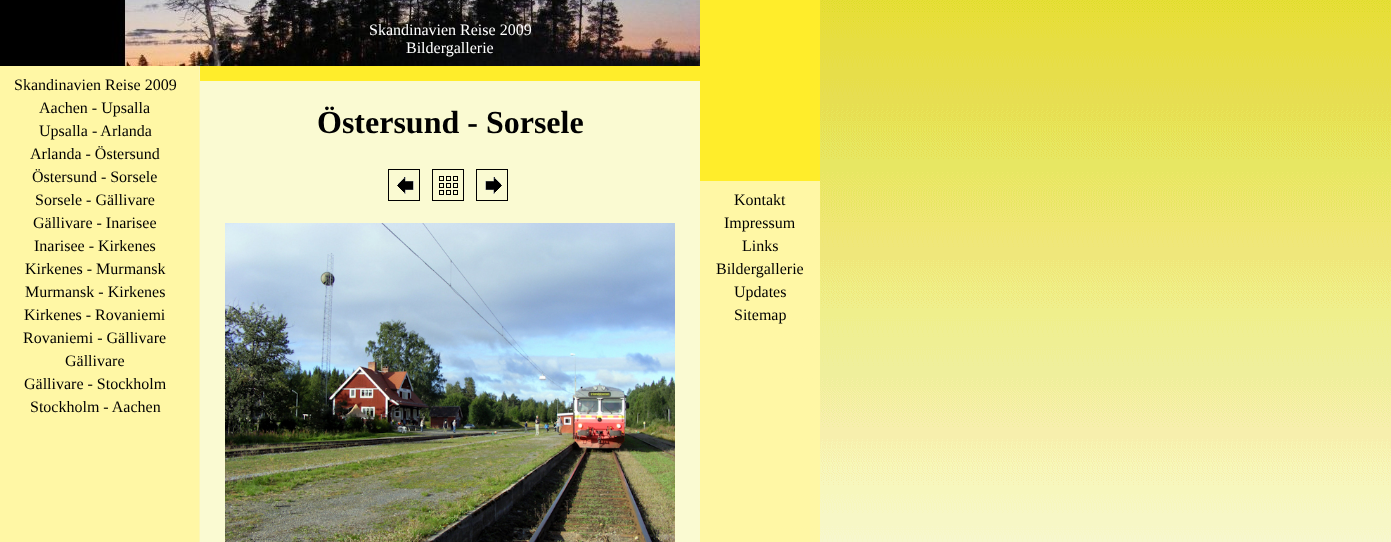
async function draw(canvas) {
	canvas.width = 1391;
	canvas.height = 542;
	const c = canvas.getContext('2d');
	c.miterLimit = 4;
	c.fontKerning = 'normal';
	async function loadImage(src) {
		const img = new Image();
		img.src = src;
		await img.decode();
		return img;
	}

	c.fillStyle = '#fff';
	c.fillRect(0, 0, 1391, 542);
	c.drawImage(await loadImage('img1.png'), 820, 0, 571, 542);
	c.drawImage(await loadImage('img2.png'), 0, 66, 820, 476);
	c.drawImage(await loadImage('img3.png'), 0, 0, 200, 66);
	c.font = '16px Liberation Serif';
	c.fillStyle = '#000';
	for (const [text, x, y] of [
		['Skandinavien Reise 2009', 14, 90],
		['Aachen - Upsalla', 39, 113],
		['Upsalla - Arlanda', 39, 136],
		['Arlanda - Östersund', 30, 159],
		['Östersund - Sorsele', 32, 182],
		['Sorsele - Gällivare', 35, 205],
		['Gällivare - Inarisee', 33, 228],
		['Inarisee - Kirkenes', 34, 251],
		['Kirkenes - Murmansk', 25, 274],
		['Murmansk - Kirkenes', 25, 297],
		['Kirkenes - Rovaniemi', 24, 320],
		['Rovaniemi - Gällivare', 23, 343],
		['Gällivare', 65, 366],
		['Gällivare - Stockholm', 24, 389],
		['Stockholm - Aachen', 30, 412],
	]) {
		c.fillText(text, x, y);
	}
	c.drawImage(await loadImage('img4.png'), 200, 0, 500, 66);
	c.fillStyle = '#fff';
	c.fillText('Skandinavien Reise 2009', 369, 35);
	c.fillText('Bildergallerie', 406, 53);
	c.fillStyle = '#ffed2b';
	c.fillRect(200, 66, 500, 15);
	c.font = 'bold 32px Liberation Serif';
	c.fillStyle = '#000';
	c.fillText('Östersund - Sorsele', 317, 133);
	c.drawImage(await loadImage('img5.png'), 388, 169, 32, 32);
	c.drawImage(await loadImage('img6.png'), 432, 169, 32, 32);
	c.drawImage(await loadImage('img7.png'), 476, 169, 32, 32);
	c.drawImage(await loadImage('img8.png'), 225, 223, 450, 319);
	c.fillStyle = '#ffed2b';
	c.fillRect(700, 0, 120, 181);
	c.font = '16px Liberation Serif';
	c.fillStyle = '#000';
	for (const [text, x, y] of [
		['Kontakt', 734, 205],
		['Impressum', 724, 228],
		['Links', 742, 251],
		['Bildergallerie', 716, 274],
		['Updates', 734, 297],
		['Sitemap', 734, 320],
	]) {
		c.fillText(text, x, y);
	}
}

draw(document.querySelector('canvas'));
